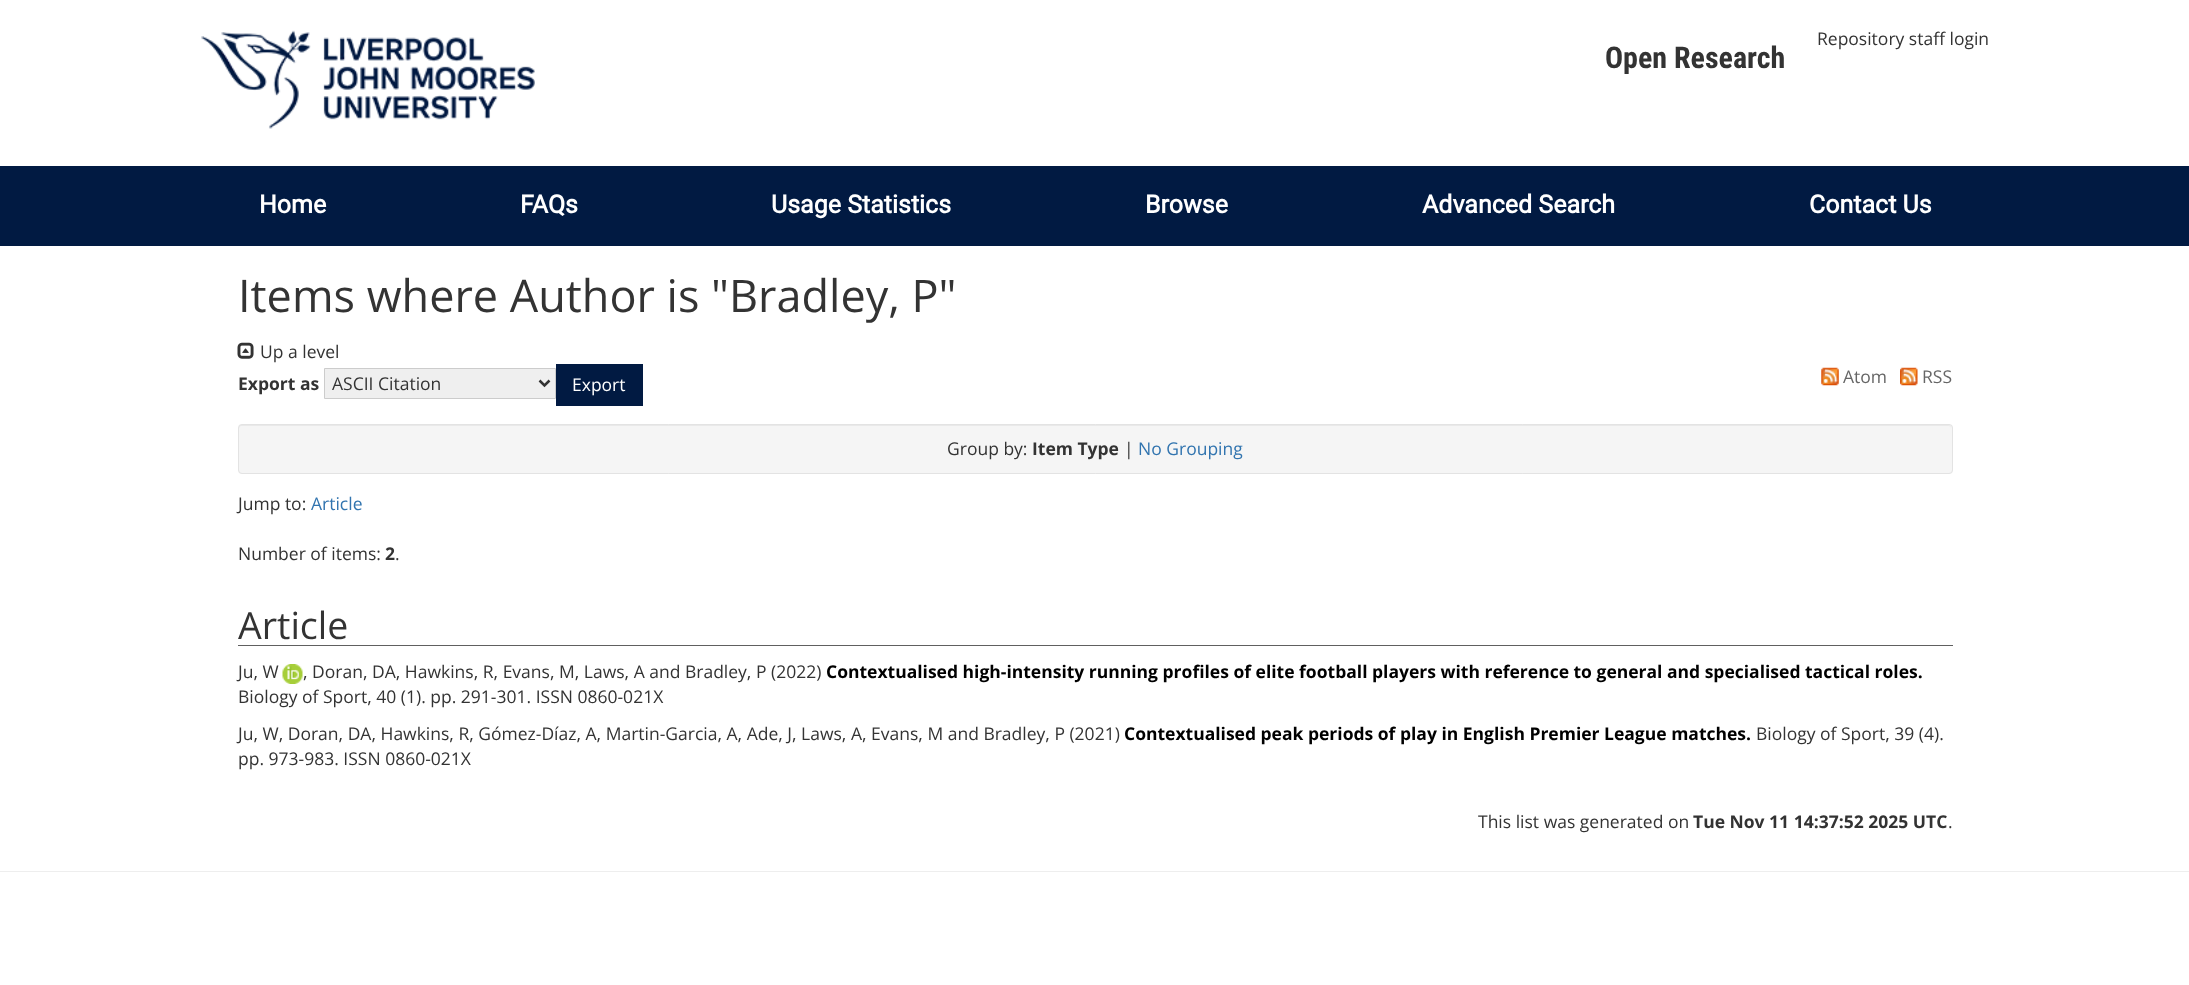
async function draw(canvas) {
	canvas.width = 2189;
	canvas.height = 985;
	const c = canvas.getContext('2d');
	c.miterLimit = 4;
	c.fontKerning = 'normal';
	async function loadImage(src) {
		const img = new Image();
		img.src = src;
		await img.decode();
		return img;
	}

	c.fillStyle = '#fff';
	c.fillRect(0, 0, 2189, 985);
	c.drawImage(await loadImage('img1.png'), 201, 30, 334, 99);
	c.font = '17.5px Open Sans';
	c.fillStyle = '#333';
	c.fillText('Repository staff login', 1817, 45);
	c.font = 'bold 30px Roboto Condensed';
	c.fillText('Open Research', 1605, 68);
	c.fillStyle = '#011a42';
	c.fillRect(0, 166, 2189, 80);
	c.font = 'bold 25px Roboto';
	c.fillStyle = '#fff';
	for (const [text, x, y] of [
		['Home', 259, 213],
		['FAQs', 520, 213],
		['Usage Statistics', 771, 213],
		['Browse', 1145, 213],
		['Advanced Search', 1422, 213],
		['Contact Us', 1809, 213],
	]) {
		c.fillText(text, x, y);
	}
	c.font = '45px Open Sans';
	c.fillStyle = '#333';
	c.fillText('Items where Author is "Bradley, P"', 238, 312);
	c.drawImage(await loadImage('img2.png'), 237, 342, 17, 17);
	c.font = '17.5px Open Sans';
	c.fillText('Up a level', 260, 358);
	c.font = 'bold 17.5px Open Sans';
	c.fillText('Export as', 238, 390);
	c.fillStyle = '#efefef';
	c.beginPath();
	c.rect(324.5, 368.5, 231, 30);
	c.fill();
	c.strokeStyle = '#ccc';
	c.stroke();
	c.beginPath();
	c.moveTo(539.5, 380.5);
	c.lineTo(544.5, 385.5);
	c.lineTo(549.5, 380.5);
	c.strokeStyle = '#333';
	c.lineWidth = 2.5;
	c.stroke();
	c.font = '17.5px Open Sans';
	c.fillStyle = '#333';
	c.fillText('ASCII Citation', 332, 390);
	c.fillStyle = '#011a42';
	c.fillRect(556, 364, 87, 42);
	c.fillStyle = '#fff';
	c.fillText('Export', 572, 391);
	c.drawImage(await loadImage('img3.png'), 1821, 367, 18, 19);
	c.fillStyle = '#666';
	c.fillText('Atom', 1843, 383);
	c.drawImage(await loadImage('img4.png'), 1900, 367, 18, 19);
	c.fillText('RSS', 1922, 383);
	c.fillStyle = '#f5f5f5';
	c.beginPath();
	c.roundRect(238, 424, 1715, 50, 4);
	c.fill();
	c.fillStyle = '#e9e9e9';
	c.beginPath();
	c.moveTo(241, 426);
	c.lineTo(1949, 426);
	c.bezierCurveTo(1950, 426, 1951, 427, 1951, 429);
	c.lineTo(1951, 428);
	c.bezierCurveTo(1951, 426, 1950, 425, 1948, 425);
	c.lineTo(242, 425);
	c.bezierCurveTo(240, 425, 239, 426, 239, 428);
	c.lineTo(239, 429);
	c.bezierCurveTo(239, 427, 240, 426, 241, 426);
	c.closePath();
	c.fill();
	c.beginPath();
	c.roundRect(238.5, 424.5, 1714, 49, 3.5);
	c.strokeStyle = '#e3e3e3';
	c.lineWidth = 1;
	c.stroke();
	c.fillStyle = '#333';
	c.fillText('Group by:', 947, 455);
	c.font = 'bold 17.5px Open Sans';
	c.fillText('Item Type', 1032, 455);
	c.font = '17.5px Open Sans';
	c.fillText('|', 1124, 455);
	c.fillStyle = '#3174af';
	c.fillText('No Grouping', 1138, 455);
	c.fillStyle = '#333';
	c.fillText('Jump to:', 238, 510);
	c.fillStyle = '#3174af';
	c.fillText('Article', 311, 510);
	c.fillStyle = '#333';
	c.fillText('Number of items:', 238, 560);
	c.font = 'bold 17.5px Open Sans';
	c.fillText('2', 385, 560);
	c.font = '17.5px Open Sans';
	c.fillText('.', 395, 560);
	c.fillStyle = '#606060';
	c.fillRect(238, 645, 1715, 1);
	c.font = '37.5px Open Sans';
	c.fillStyle = '#333';
	c.fillText('Article', 238, 639);
	c.font = '17.5px Open Sans';
	c.fillText('Ju, W', 238, 678);
	c.drawImage(await loadImage('img5.png'), 282, 664, 21, 20);
	c.fillText(', Doran, DA, Hawkins, R, Evans, M, Laws, A and Bradley, P (2022)', 303, 678);
	c.font = 'bold 17.5px Open Sans';
	c.fillStyle = '#000';
	c.fillText('Contextualised high-intensity running profiles of elite football players with reference to general and specialised tactical roles.', 826, 678);
	c.font = '17.5px Open Sans';
	c.fillStyle = '#333';
	c.fillText('Biology of Sport, 40 (1). pp. 291-301. ISSN 0860-021X', 238, 703);
	c.fillText('Ju, W, Doran, DA, Hawkins, R, Gómez-Díaz, A, Martin-Garcia, A, Ade, J, Laws, A, Evans, M and Bradley, P (2021)', 238, 740);
	c.font = 'bold 17.5px Open Sans';
	c.fillStyle = '#000';
	c.fillText('Contextualised peak periods of play in English Premier League matches.', 1124, 740);
	c.font = '17.5px Open Sans';
	c.fillStyle = '#333';
	for (const [text, x, y] of [
		['Biology of Sport, 39 (4).', 1756, 740],
		['pp. 973-983. ISSN 0860-021X', 238, 765],
		['This list was generated on', 1478, 828],
	]) {
		c.fillText(text, x, y);
	}
	c.font = 'bold 17.5px Open Sans';
	c.fillText('Tue Nov 11 14:37:52 2025 UTC', 1693, 828);
	c.font = '17.5px Open Sans';
	c.fillText('.', 1948, 828);
	c.fillStyle = '#eee';
	c.fillRect(0, 871, 2189, 1);
}

draw(document.querySelector('canvas'));
